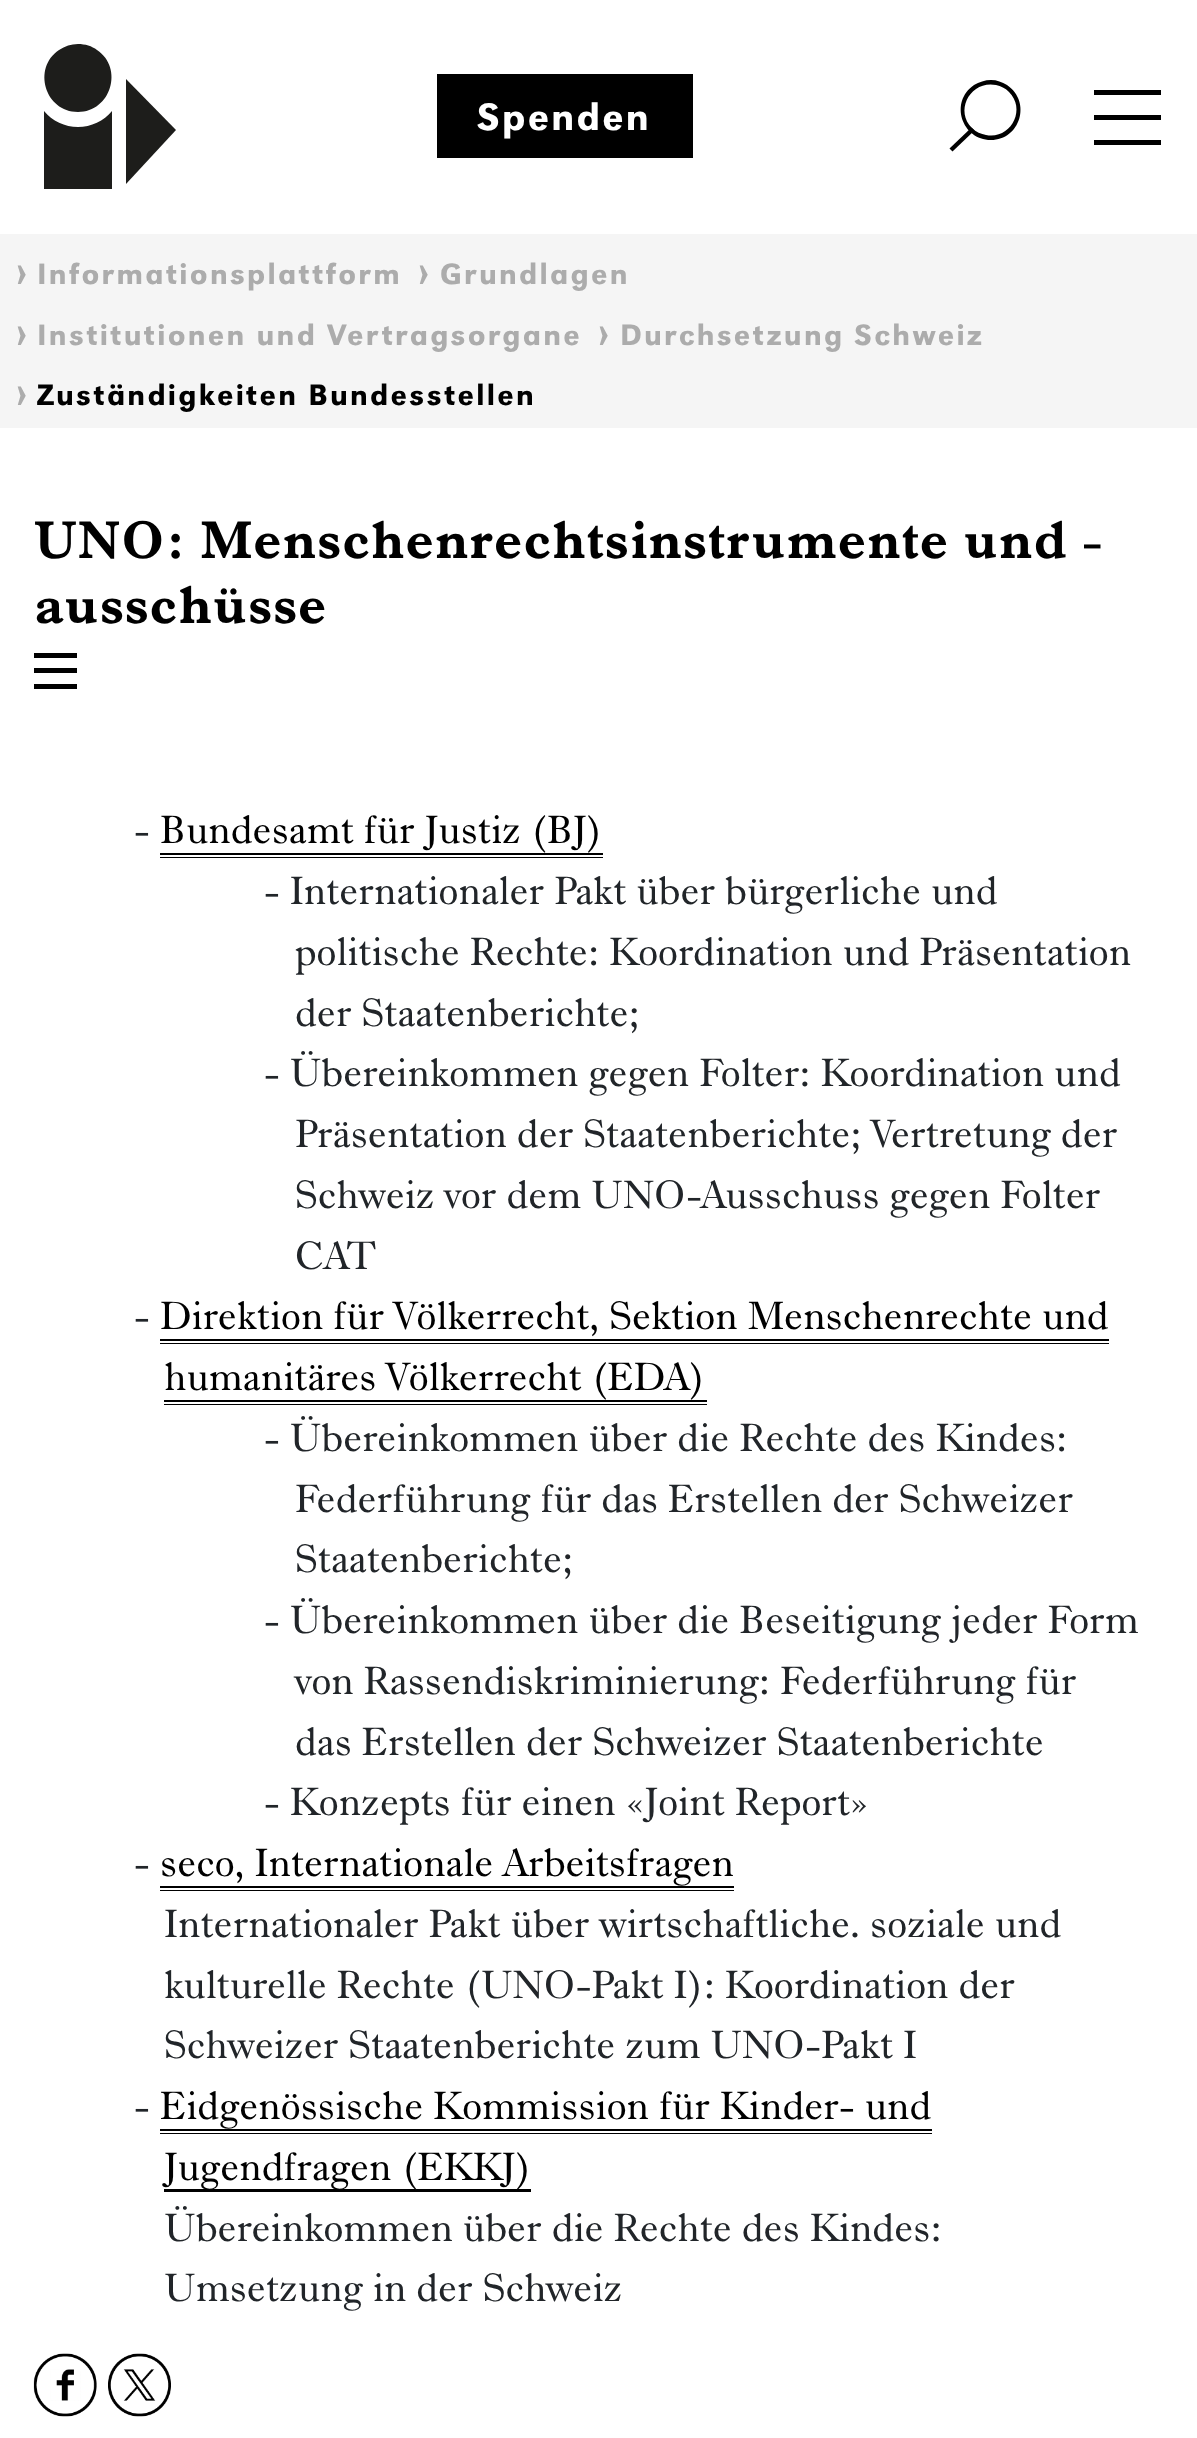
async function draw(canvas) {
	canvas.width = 1197;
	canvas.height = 2438;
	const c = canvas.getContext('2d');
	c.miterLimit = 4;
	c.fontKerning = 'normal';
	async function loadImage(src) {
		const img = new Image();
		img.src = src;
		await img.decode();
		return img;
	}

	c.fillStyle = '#fff';
	c.fillRect(0, 0, 1197, 2438);
	c.fillStyle = '#1d1d1b';
	c.beginPath();
	c.moveTo(126, 184);
	c.lineTo(176, 130);
	c.lineTo(126, 79);
	c.closePath();
	c.fill();
	c.beginPath();
	c.moveTo(78, 127);
	c.bezierCurveTo(65, 127, 52, 121, 44, 111);
	c.lineTo(44, 189);
	c.lineTo(112, 189);
	c.lineTo(112, 111);
	c.bezierCurveTo(104, 121, 91, 127, 78, 127);
	c.closePath();
	c.fill();
	c.beginPath();
	c.moveTo(78, 112);
	c.bezierCurveTo(111, 112, 124, 68, 97, 50);
	c.bezierCurveTo(92, 46, 85, 44, 78, 44);
	c.bezierCurveTo(71, 44, 65, 46, 59, 50);
	c.bezierCurveTo(32, 68, 45, 112, 78, 112);
	c.closePath();
	c.fill();
	c.fillStyle = '#000';
	c.fillRect(437, 74, 256, 84);
	c.letterSpacing = '2.25px';
	c.font = '39.5px "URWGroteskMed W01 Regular"';
	c.fillStyle = '#fff';
	c.fillText('Spenden', 477, 130);
	c.fillStyle = '#000';
	c.beginPath();
	c.moveTo(949.5, 148.5);
	c.lineTo(971.5, 127.5);
	c.lineTo(974.5, 130.5);
	c.lineTo(952.5, 151.5);
	c.closePath();
	c.fill('evenodd');
	c.beginPath();
	c.moveTo(991, 140);
	c.bezierCurveTo(962, 140, 949, 102, 974, 85);
	c.bezierCurveTo(979, 82, 985, 80, 991, 80);
	c.bezierCurveTo(997, 80, 1002, 82, 1007, 85);
	c.bezierCurveTo(1032, 102, 1020, 140, 991, 140);
	c.closePath();
	c.moveTo(986, 135);
	c.bezierCurveTo(1010, 140, 1027, 110, 1009, 92);
	c.bezierCurveTo(1005, 88, 1001, 86, 996, 85);
	c.bezierCurveTo(971, 80, 954, 110, 972, 128);
	c.bezierCurveTo(976, 132, 981, 134, 986, 135);
	c.closePath();
	c.fill();
	for (const [x, y, w, h, color] of [
		[1094, 140, 67, 5, '#000'],
		[1094, 90, 67, 5, '#000'],
		[1094, 115, 67, 5, '#000'],
		[0, 234, 1197, 194, '#f5f5f5'],
	]) {
		c.fillStyle = color;
		c.fillRect(x, y, w, h);
	}
	c.letterSpacing = '0px';
	c.font = '40.5px "URWGroteskMed W01 Regular"';
	c.fillStyle = '#acacac';
	c.fillText('›', 16, 284);
	c.letterSpacing = '2.25px';
	c.font = '30.6px "URWGroteskMed W01 Regular"';
	c.fillText('Informationsplattform', 37, 284);
	c.letterSpacing = '0px';
	c.font = '40.5px "URWGroteskMed W01 Regular"';
	c.fillText('›', 418, 284);
	c.letterSpacing = '2.25px';
	c.font = '30.6px "URWGroteskMed W01 Regular"';
	c.fillText('Grundlagen', 440, 284);
	c.letterSpacing = '0px';
	c.font = '40.5px "URWGroteskMed W01 Regular"';
	c.fillText('›', 16, 345);
	c.letterSpacing = '2.25px';
	c.font = '30.6px "URWGroteskMed W01 Regular"';
	c.fillText('Institutionen und Vertragsorgane', 37, 345);
	c.letterSpacing = '0px';
	c.font = '40.5px "URWGroteskMed W01 Regular"';
	c.fillText('›', 598, 345);
	c.letterSpacing = '2.25px';
	c.font = '30.6px "URWGroteskMed W01 Regular"';
	c.fillText('Durchsetzung Schweiz', 620, 345);
	c.letterSpacing = '0px';
	c.font = '40.5px "URWGroteskMed W01 Regular"';
	c.fillText('›', 16, 405);
	c.letterSpacing = '2.25px';
	c.font = '30.6px "URWGroteskMed W01 Regular"';
	c.fillStyle = '#000';
	c.fillText('Zuständigkeiten Bundesstellen', 37, 405);
	c.letterSpacing = '1.1px';
	c.font = 'bold 54px "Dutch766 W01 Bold"';
	c.fillText('UNO: Menschenrechtsinstrumente und -', 34, 558);
	c.fillText('ausschüsse', 34, 623);
	for (const [x, y, w, h, color] of [
		[34, 684, 43, 5, '#000'],
		[34, 653, 43, 5, '#000'],
		[34, 668, 43, 5, '#000'],
	]) {
		c.fillStyle = color;
		c.fillRect(x, y, w, h);
	}
	c.letterSpacing = '0px';
	c.font = '40.5px "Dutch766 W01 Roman"';
	c.fillStyle = '#212529';
	c.fillText('-', 134, 843);
	c.fillStyle = '#000';
	c.fillText('Bundesamt für Justiz (BJ)', 160, 843);
	c.fillRect(160, 853, 443, 5);
	c.fillStyle = '#fff';
	c.fillRect(160, 855, 443, 2);
	c.fillStyle = '#212529';
	for (const [text, x, y] of [
		['- Internationaler Pakt über bürgerliche und', 264, 904],
		['politische Rechte: Koordination und Präsentation', 295, 965],
		['der Staatenberichte;', 295, 1026],
		['- Übereinkommen gegen Folter: Koordination und', 264, 1086],
		['Präsentation der Staatenberichte; Vertretung der', 295, 1147],
		['Schweiz vor dem UNO-Ausschuss gegen Folter', 295, 1208],
		['CAT', 295, 1269],
		['-', 134, 1329],
	]) {
		c.fillText(text, x, y);
	}
	c.fillStyle = '#000';
	c.fillText('Direktion für Völkerrecht, Sektion Menschenrechte und', 160, 1329);
	c.fillRect(160, 1339, 949, 5);
	c.fillStyle = '#fff';
	c.fillRect(160, 1341, 949, 2);
	c.fillStyle = '#000';
	c.fillText('humanitäres Völkerrecht (EDA)', 164, 1390);
	c.fillRect(164, 1400, 543, 5);
	c.fillStyle = '#fff';
	c.fillRect(164, 1402, 543, 2);
	c.fillStyle = '#212529';
	for (const [text, x, y] of [
		['- Übereinkommen über die Rechte des Kindes:', 264, 1451],
		['Federführung für das Erstellen der Schweizer', 295, 1512],
		['Staatenberichte;', 295, 1572],
		['- Übereinkommen über die Beseitigung jeder Form', 264, 1633],
		['von Rassendiskriminierung: Federführung für', 295, 1694],
		['das Erstellen der Schweizer Staatenberichte', 295, 1755],
		['- Konzepts für einen «Joint Report»', 264, 1815],
		['-', 134, 1876],
	]) {
		c.fillText(text, x, y);
	}
	c.fillStyle = '#000';
	c.fillText('seco, Internationale Arbeitsfragen', 160, 1876);
	c.fillRect(160, 1886, 574, 5);
	c.fillStyle = '#fff';
	c.fillRect(160, 1888, 574, 2);
	c.fillStyle = '#212529';
	for (const [text, x, y] of [
		['Internationaler Pakt über wirtschaftliche. soziale und', 164, 1937],
		['kulturelle Rechte (UNO-Pakt I): Koordination der', 164, 1998],
		['Schweizer Staatenberichte zum UNO-Pakt I', 164, 2058],
		['-', 134, 2119],
	]) {
		c.fillText(text, x, y);
	}
	c.fillStyle = '#000';
	c.fillText('Eidgenössische Kommission für Kinder- und', 160, 2119);
	for (const [x, y, w, h, color] of [
		[160, 2129, 772, 5, '#000'],
		[160, 2131, 772, 2, '#fff'],
		[164, 2189, 367, 3, '#000'],
	]) {
		c.fillStyle = color;
		c.fillRect(x, y, w, h);
	}
	c.fillText('Jugendfragen (EKKJ)', 164, 2180);
	c.fillStyle = '#212529';
	c.fillText('Übereinkommen über die Rechte des Kindes:', 164, 2241);
	c.fillText('Umsetzung in der Schweiz', 164, 2301);
	c.drawImage(await loadImage('img1.png'), 33, 2353, 64, 64);
	c.drawImage(await loadImage('img2.png'), 108, 2353, 63, 64);
}

draw(document.querySelector('canvas'));
